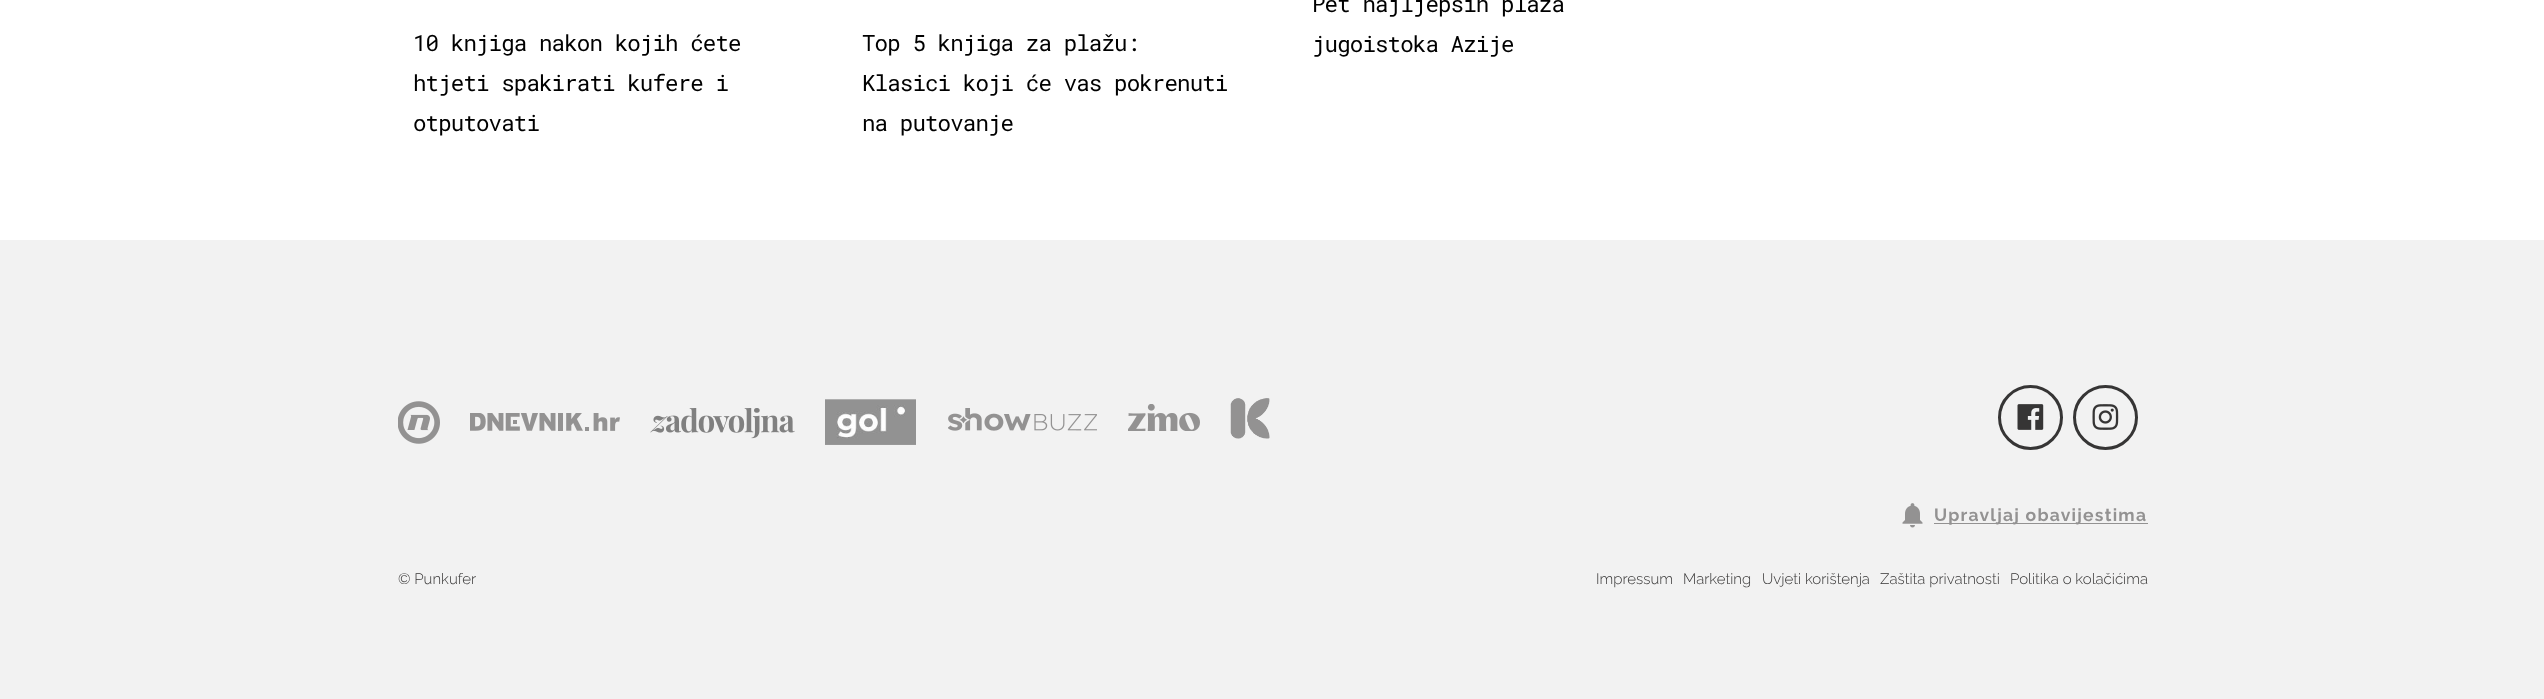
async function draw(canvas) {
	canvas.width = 2544;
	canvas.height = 699;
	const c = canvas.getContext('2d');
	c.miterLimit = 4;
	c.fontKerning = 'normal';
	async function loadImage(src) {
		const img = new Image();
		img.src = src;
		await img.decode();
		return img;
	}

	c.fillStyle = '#fff';
	c.fillRect(0, 0, 2544, 699);
	c.letterSpacing = '-0.9px';
	c.font = '22.5px Roboto Mono';
	c.fillStyle = '#000';
	for (const [text, x, y] of [
		['10 knjiga nakon kojih ćete', 413, 51],
		['htjeti spakirati kufere i', 413, 91],
		['otputovati', 413, 131],
		['Top 5 knjiga za plažu:', 862, 51],
		['Klasici koji će vas pokrenuti', 862, 91],
		['na putovanje', 862, 131],
		['Pet najljepših plaža', 1312, 12],
		['jugoistoka Azije', 1312, 52],
	]) {
		c.fillText(text, x, y);
	}
	c.fillStyle = '#f2f2f2';
	c.fillRect(0, 240, 2544, 459);
	c.drawImage(await loadImage('img1.png'), 398, 401, 42, 43);
	c.drawImage(await loadImage('img2.png'), 470, 413, 150, 18);
	c.drawImage(await loadImage('img3.png'), 650, 408, 145, 31);
	c.drawImage(await loadImage('img4.png'), 825, 399, 91, 46);
	c.drawImage(await loadImage('img5.png'), 948, 408, 149, 23);
	c.drawImage(await loadImage('img6.png'), 1128, 404, 72, 27);
	c.drawImage(await loadImage('img7.png'), 1230, 398, 40, 41);
	c.beginPath();
	c.arc(2030.5, 417.5, 31, 0, 2 * Math.PI);
	c.strokeStyle = '#363535';
	c.lineWidth = 3;
	c.stroke();
	c.drawImage(await loadImage('img8.png'), 2017, 404, 27, 26);
	c.beginPath();
	c.arc(2105.5, 417.5, 31, 0, 2 * Math.PI);
	c.stroke();
	c.drawImage(await loadImage('img9.png'), 2092, 404, 27, 26);
	c.drawImage(await loadImage('img10.png'), 1902, 503, 21, 25);
	c.fillStyle = '#939292';
	c.fillRect(1934, 523, 214, 1);
	c.letterSpacing = '1.25px';
	c.font = 'bold 17.5px Raleway';
	c.fillText('Upravljaj obavijestima', 1934, 521);
	c.letterSpacing = '0px';
	c.font = '300 15px Raleway';
	c.fillStyle = '#363535';
	for (const [text, x, y] of [
		['© Punkufer', 398, 584],
		['Impressum', 1596, 584],
		['Marketing', 1683, 584],
		['Uvjeti korištenja', 1762, 584],
		['Zaštita privatnosti', 1880, 584],
		['Politika o kolačićima', 2010, 584],
	]) {
		c.fillText(text, x, y);
	}
}

draw(document.querySelector('canvas'));
